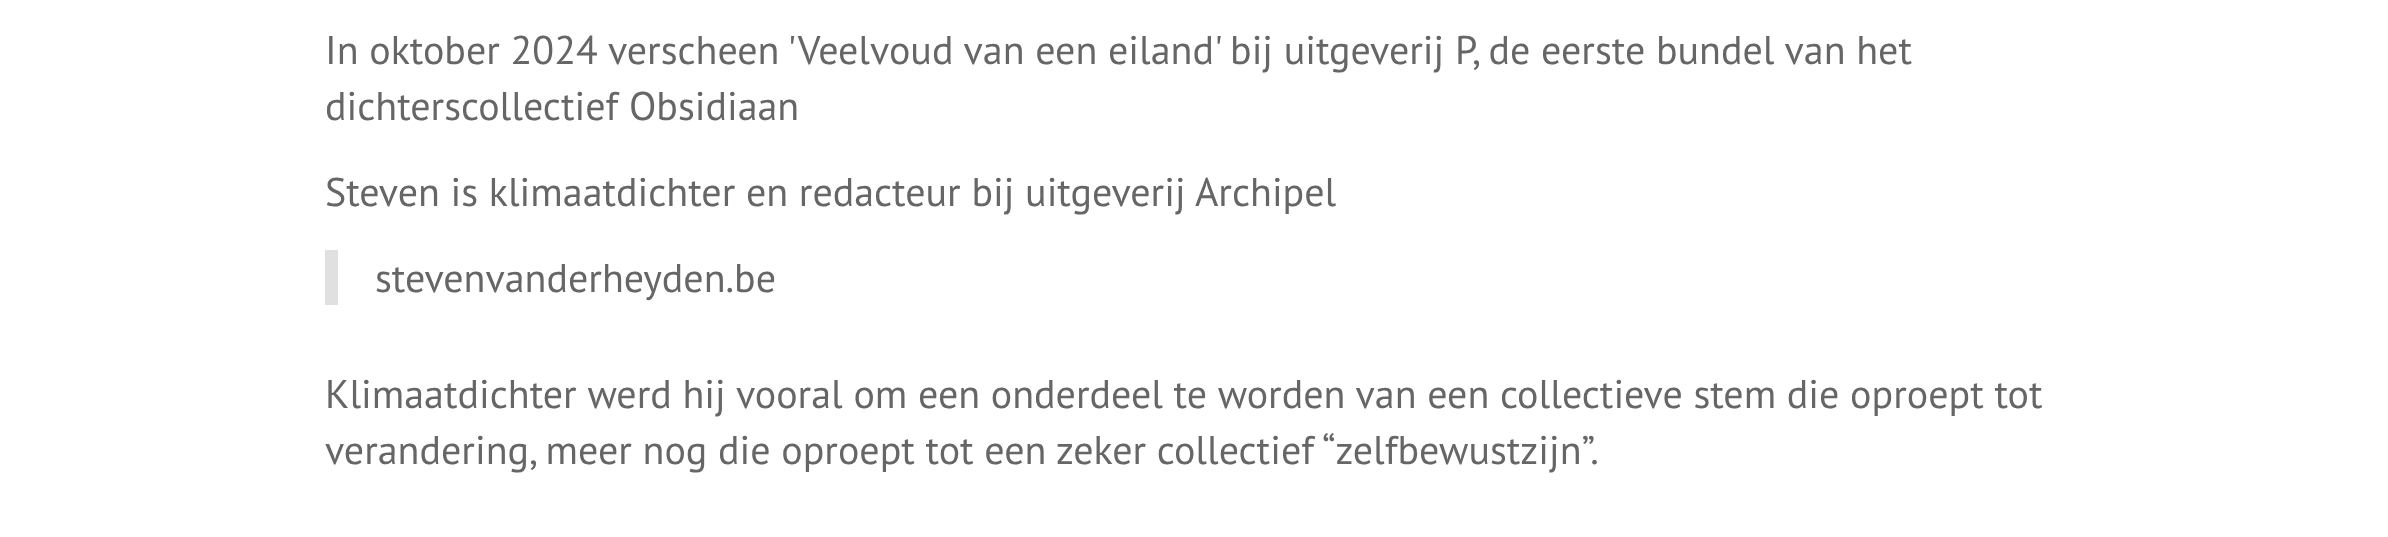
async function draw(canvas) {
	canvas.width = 2388;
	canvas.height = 537;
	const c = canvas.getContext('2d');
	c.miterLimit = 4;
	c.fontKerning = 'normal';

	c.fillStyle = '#fff';
	c.fillRect(0, 0, 2388, 537);
	c.font = '40px PT Sans';
	c.fillStyle = '#666';
	for (const [text, x, y] of [
		['In oktober 2024 verscheen \'Veelvoud van een eiland\' bij uitgeverij P, de eerste bundel van het', 325, 64],
		['dichterscollectief Obsidiaan', 325, 120],
		['Steven is klimaatdichter en redacteur bij uitgeverij Archipel', 325, 206],
	]) {
		c.fillText(text, x, y);
	}
	c.fillStyle = '#e0e0e0';
	c.fillRect(325, 250, 13, 55);
	c.fillStyle = '#666';
	for (const [text, x, y] of [
		['stevenvanderheyden.be', 375, 292],
		['Klimaatdichter werd hij vooral om een onderdeel te worden van een collectieve stem die oproept tot', 325, 408],
		['verandering, meer nog die oproept tot een zeker collectief “zelfbewustzijn”.', 325, 464],
	]) {
		c.fillText(text, x, y);
	}
}

draw(document.querySelector('canvas'));
